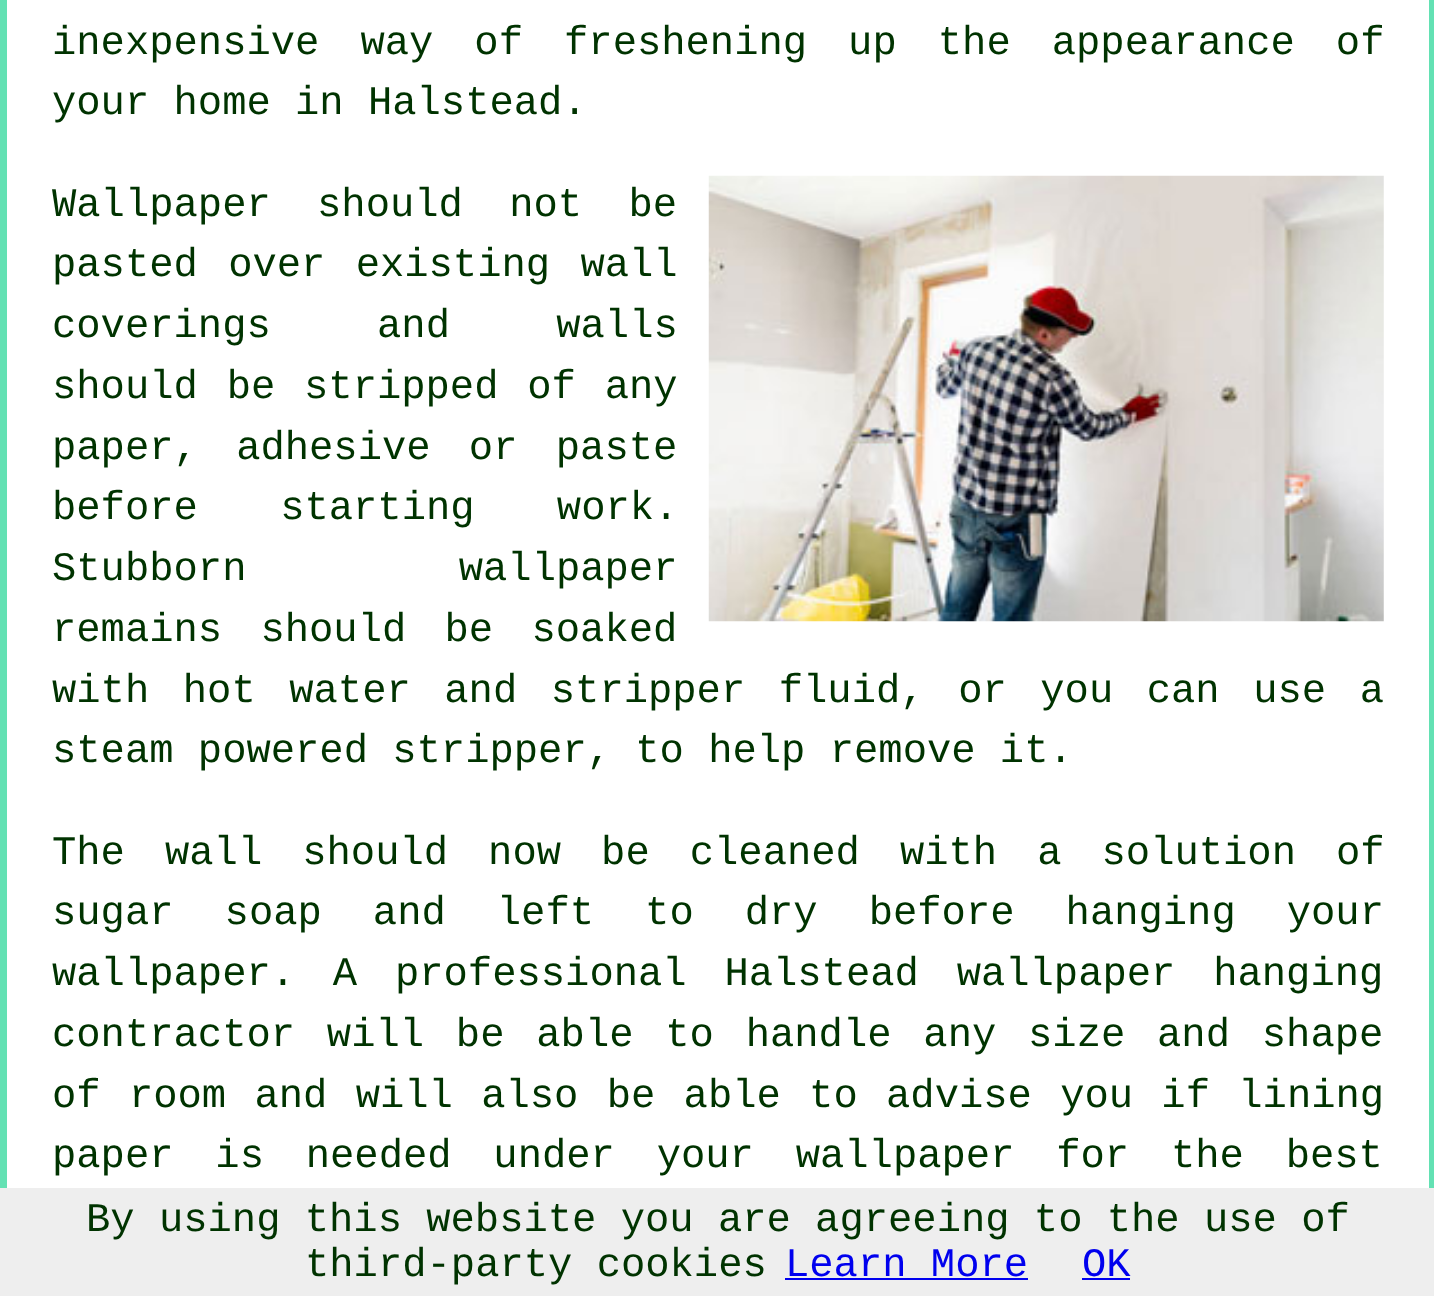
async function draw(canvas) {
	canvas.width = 1434;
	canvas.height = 1296;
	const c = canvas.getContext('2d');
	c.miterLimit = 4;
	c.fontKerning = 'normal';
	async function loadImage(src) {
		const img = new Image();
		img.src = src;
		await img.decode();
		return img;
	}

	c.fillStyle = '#fff';
	c.fillRect(0, 0, 1434, 1296);
	c.strokeStyle = '#63e1b3';
	c.lineWidth = 7;
	c.strokeRect(3.5, -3.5, 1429, 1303);
	c.wordSpacing = '16.75px';
	c.font = '40.5px Liberation Mono';
	c.fillStyle = '#030';
	c.fillText('inexpensive way of freshening up the appearance of', 52, 54);
	c.wordSpacing = '0px';
	c.fillText('your home in Halstead.', 52, 114);
	c.drawImage(await loadImage('img1.png'), 708, 175, 676, 447);
	c.wordSpacing = '22px';
	c.fillText('Wallpaper should not be', 52, 216);
	c.wordSpacing = '6px';
	c.fillText('pasted over existing wall', 52, 276);
	c.wordSpacing = '82px';
	c.fillText('coverings and walls', 52, 337);
	c.wordSpacing = '4.5px';
	c.fillText('should be stripped of any', 52, 398);
	c.wordSpacing = '14px';
	c.fillText('paper, adhesive or paste', 52, 459);
	c.wordSpacing = '58px';
	c.fillText('before starting work.', 52, 519);
	c.wordSpacing = '188px';
	c.fillText('Stubborn wallpaper', 52, 580);
	c.wordSpacing = '14px';
	c.fillText('remains should be soaked', 52, 641);
	c.wordSpacing = '9.25px';
	c.fillText('with hot water and stripper fluid, or you can use a', 52, 702);
	c.wordSpacing = '0px';
	c.fillText('steam powered stripper, to help remove it.', 52, 762);
	c.wordSpacing = '15.75px';
	c.fillText('The wall should now be cleaned with a solution of', 52, 864);
	c.wordSpacing = '26.75px';
	c.fillText('sugar soap and left to dry before hanging your', 52, 924);
	c.wordSpacing = '13.5px';
	c.fillText('wallpaper. A professional Halstead wallpaper hanging', 52, 985);
	c.wordSpacing = '7.5px';
	c.fillText('contractor will be able to handle any size and shape', 52, 1046);
	c.wordSpacing = '4px';
	c.fillText('of room and will also be able to advise you if lining', 52, 1107);
	c.wordSpacing = '17.5px';
	c.fillText('paper is needed under your wallpaper for the best', 52, 1167);
	c.fillStyle = '#eee';
	c.fillRect(0, 1188, 1434, 108);
	c.wordSpacing = '0px';
	c.fillStyle = '#030';
	c.fillText('By using this website you are agreeing to the use of', 86, 1231);
	c.fillText('third-party cookies', 305, 1276);
	c.fillStyle = '#00e';
	c.fillText('Learn More', 785, 1276);
	c.fillRect(785, 1278, 243, 2);
	c.fillText('OK', 1082, 1276);
	c.fillRect(1082, 1278, 48, 2);
}

draw(document.querySelector('canvas'));
